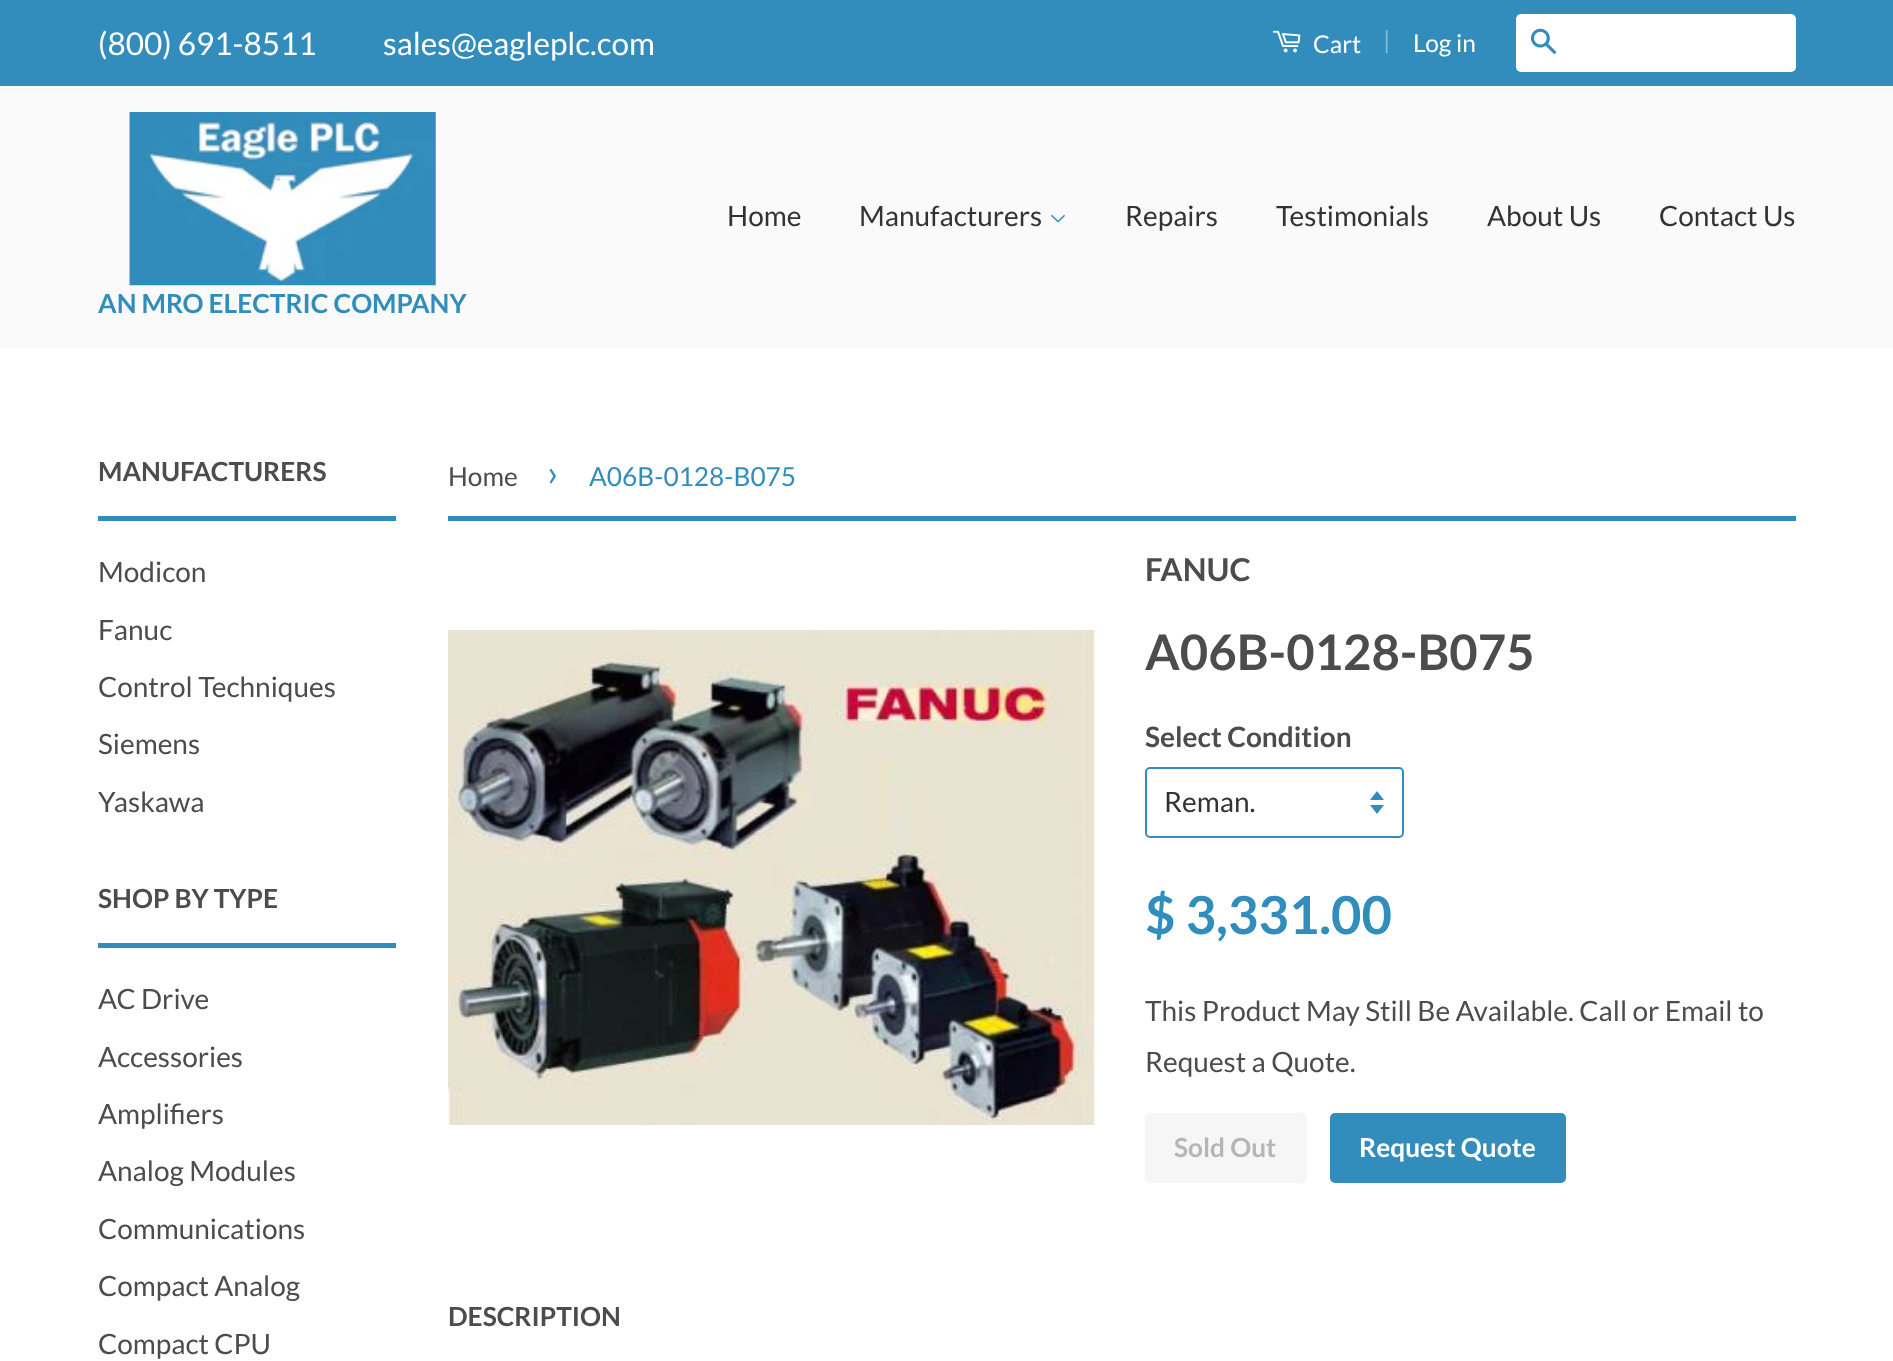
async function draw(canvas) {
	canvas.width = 1893;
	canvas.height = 1361;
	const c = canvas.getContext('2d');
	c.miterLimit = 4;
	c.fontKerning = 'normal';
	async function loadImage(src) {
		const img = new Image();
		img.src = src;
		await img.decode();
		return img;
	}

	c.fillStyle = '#fff';
	c.fillRect(0, 0, 1893, 1361);
	c.fillStyle = '#338dbc';
	c.fillRect(0, 0, 1893, 86);
	c.font = '31.5px Lato';
	c.fillStyle = '#fff';
	c.fillText('(800) 691-8511', 98, 55);
	c.fillText('sales@eagleplc.com', 383, 55);
	c.drawImage(await loadImage('img1.png'), 1272, 30, 29, 23);
	c.font = '24.5px Lato';
	c.fillText('Cart', 1313, 53);
	c.fillStyle = '#85bbd7';
	c.fillText('|', 1383, 49);
	c.fillStyle = '#fff';
	c.fillText('Log in', 1413, 52);
	c.beginPath();
	c.roundRect(1516, 14, 280, 58, 5);
	c.fill();
	c.drawImage(await loadImage('img2.png'), 1530, 28, 27, 26);
	c.fillStyle = '#fafafa';
	c.fillRect(0, 86, 1893, 262);
	c.font = '28px Lato';
	c.fillStyle = '#333';
	c.fillText('Home', 727, 226);
	c.fillText('Manufacturers', 859, 226);
	c.drawImage(await loadImage('img3.png'), 1051, 214, 14, 9);
	for (const [text, x, y] of [
		['Repairs', 1125, 226],
		['Testimonials', 1276, 226],
		['About Us', 1487, 226],
		['Contact Us', 1659, 226],
	]) {
		c.fillText(text, x, y);
	}
	c.drawImage(await loadImage('img4.png'), 129, 112, 307, 174);
	c.font = 'bold 26.25px Lato';
	c.fillStyle = '#318dbb';
	c.fillText('AN MRO ELECTRIC COMPANY', 98, 313);
	c.fillStyle = '#338dbc';
	c.fillRect(98, 516, 298, 5);
	c.fillStyle = '#4c4c4c';
	c.fillText('MANUFACTURERS', 98, 481);
	c.font = '28px Lato';
	for (const [text, x, y] of [
		['Modicon', 98, 582],
		['Fanuc', 98, 640],
		['Control Techniques', 98, 697],
		['Siemens', 98, 754],
		['Yaskawa', 98, 812],
	]) {
		c.fillText(text, x, y);
	}
	c.fillStyle = '#338dbc';
	c.fillRect(98, 943, 298, 5);
	c.font = 'bold 26.25px Lato';
	c.fillStyle = '#4c4c4c';
	c.fillText('SHOP BY TYPE', 98, 908);
	c.font = '28px Lato';
	for (const [text, x, y] of [
		['AC Drive', 98, 1009],
		['Accessories', 98, 1067],
		['Amplifiers', 98, 1124],
		['Analog Modules', 98, 1181],
		['Communications', 98, 1239],
		['Compact Analog', 98, 1296],
		['Compact CPU', 98, 1354],
	]) {
		c.fillText(text, x, y);
	}
	c.fillStyle = '#338dbc';
	c.fillRect(448, 516, 1348, 5);
	c.font = '26.25px Lato';
	c.fillStyle = '#4c4c4c';
	c.fillText('Home', 448, 486);
	c.font = '37px Lato';
	c.fillStyle = '#318dbb';
	c.fillText('›', 547, 486);
	c.font = '26.25px Lato';
	c.fillText('A06B-0128-B075', 589, 486);
	c.drawImage(await loadImage('img5.png'), 448, 630, 648, 495);
	c.font = 'bold 31.5px Lato';
	c.fillStyle = '#4c4c4c';
	c.fillText('FANUC', 1145, 581);
	c.font = 'bold 49px Lato';
	c.fillText('A06B-0128-B075', 1145, 670);
	c.font = 'bold 28px Lato';
	c.fillText('Select Condition', 1145, 747);
	c.fillStyle = '#338dbc';
	c.beginPath();
	c.moveTo(1370, 805);
	c.lineTo(1377, 814);
	c.lineTo(1384, 805);
	c.closePath();
	c.moveTo(1377, 791);
	c.lineTo(1370, 800);
	c.lineTo(1384, 800);
	c.closePath();
	c.fill();
	c.beginPath();
	c.roundRect(1146, 768, 257, 69, 4);
	c.strokeStyle = '#338dbc';
	c.lineWidth = 2;
	c.stroke();
	c.font = '28px Lato';
	c.fillStyle = '#333';
	c.fillText('Reman.', 1164, 812);
	c.font = 'bold 52.5px Lato';
	c.fillStyle = '#318dbb';
	c.fillText('$ 3,331.00', 1145, 934);
	c.font = '28px Lato';
	c.fillStyle = '#4c4c4c';
	c.fillText('This Product May Still Be Available. Call or Email to', 1145, 1021);
	c.fillText('Request a Quote.', 1145, 1072);
	c.fillStyle = '#f6f6f6';
	c.beginPath();
	c.roundRect(1145, 1113, 162, 70, 5);
	c.fill();
	c.font = 'bold 26.25px Lato';
	c.fillStyle = '#b6b6b6';
	c.fillText('Sold Out', 1174, 1157);
	c.fillStyle = '#338dbc';
	c.beginPath();
	c.roundRect(1330, 1113, 236, 70, 5);
	c.fill();
	c.fillStyle = '#fff';
	c.fillText('Request Quote', 1359, 1157);
	c.fillStyle = '#4c4c4c';
	c.fillText('DESCRIPTION', 448, 1326);
}

draw(document.querySelector('canvas'));
